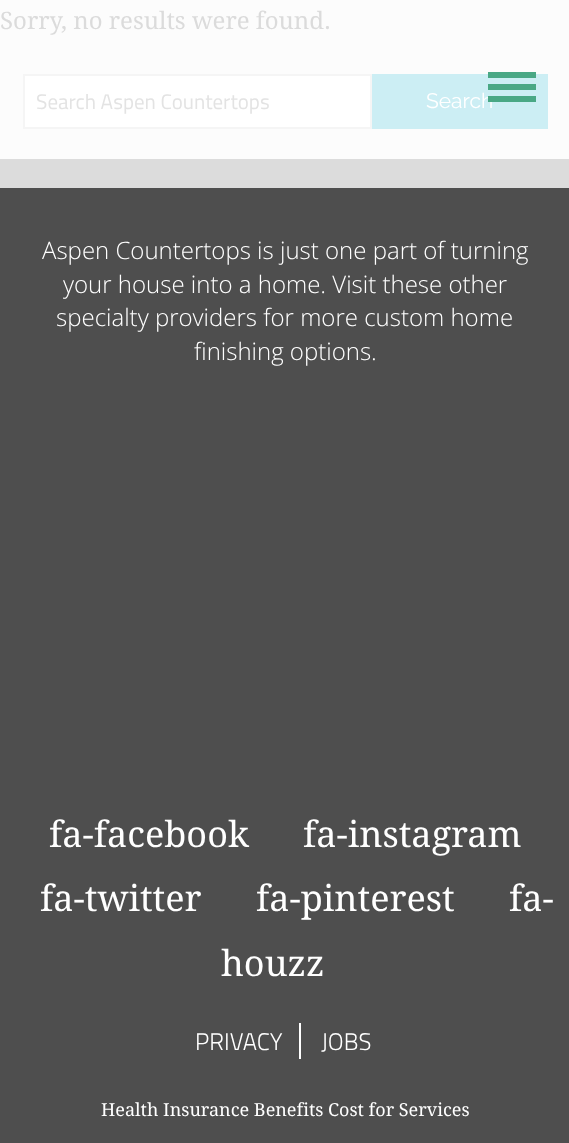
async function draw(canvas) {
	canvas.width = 569;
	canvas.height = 1143;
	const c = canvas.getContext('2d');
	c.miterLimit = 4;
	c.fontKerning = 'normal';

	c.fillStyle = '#fcfcfc';
	c.fillRect(0, 0, 569, 1143);
	c.font = '24px Droid Serif';
	c.fillStyle = '#dbdbdb';
	c.fillText('Sorry, no results were found.', 0, 29);
	c.fillStyle = '#fff';
	c.beginPath();
	c.rect(24, 75, 347, 53);
	c.fill();
	c.strokeStyle = '#f5f5f5';
	c.lineWidth = 2;
	c.stroke();
	c.font = '21px Titillium Web';
	c.fillStyle = '#e3e3e3';
	c.fillText('Search Aspen Countertops', 36, 109);
	c.fillStyle = '#cceef4';
	c.fillRect(372, 74, 176, 55);
	c.font = '21px Raleway';
	c.fillStyle = '#fff';
	c.fillText('Search', 426, 108);
	for (const [x, y, w, h, color] of [
		[488, 96, 48, 6, '#49a885'],
		[488, 84, 48, 6, '#49a885'],
		[488, 72, 48, 6, '#49a885'],
		[0, 188, 569, 955, '#4e4e4e'],
		[0, 159, 569, 29, '#dcdcdc'],
	]) {
		c.fillStyle = color;
		c.fillRect(x, y, w, h);
	}
	c.font = '300 24px Open Sans';
	c.fillStyle = '#fff';
	for (const [text, x, y] of [
		['Aspen Countertops is just one part of turning', 42, 259],
		['your house into a home. Visit these other', 63, 293],
		['specialty providers for more custom home', 56, 326],
		['finishing options.', 194, 360],
	]) {
		c.fillText(text, x, y);
	}
	c.font = '36px Droid Serif';
	for (const [text, x, y] of [
		['fa-facebook', 49, 847],
		['fa-instagram', 303, 847],
		['fa-twitter', 40, 911],
		['fa-pinterest', 256, 911],
		['fa-', 509, 911],
		['houzz', 221, 976],
	]) {
		c.fillText(text, x, y);
	}
	c.font = '300 24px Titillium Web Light';
	c.fillText('PRIVACY', 195, 1050);
	c.fillRect(299, 1023, 2, 36);
	c.fillText('JOBS', 321, 1050);
	c.font = '18px Droid Serif';
	c.fillText('Health Insurance Benefits Cost for Services', 101, 1116);
}

draw(document.querySelector('canvas'));
